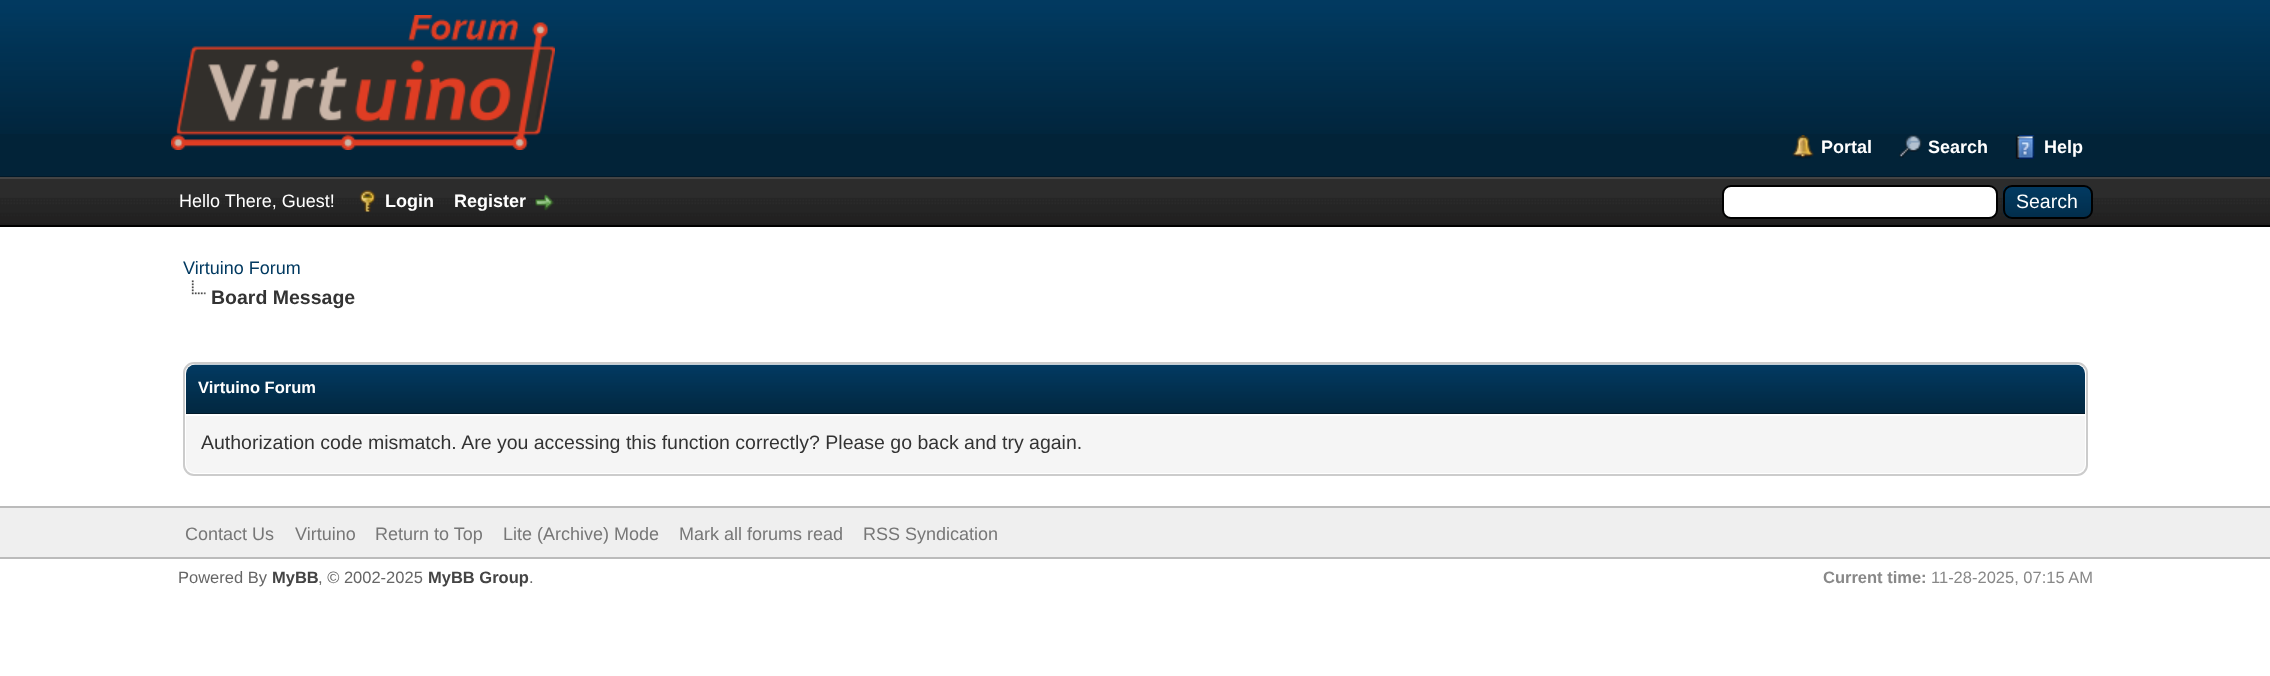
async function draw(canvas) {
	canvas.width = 2270;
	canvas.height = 676;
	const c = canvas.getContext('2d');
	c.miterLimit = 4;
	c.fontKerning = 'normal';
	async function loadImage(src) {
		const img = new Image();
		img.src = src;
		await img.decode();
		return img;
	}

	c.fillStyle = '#fff';
	c.fillRect(0, 0, 2270, 676);
	c.fillStyle = '#022338';
	c.fillRect(0, 134, 2270, 42);
	c.drawImage(await loadImage('img1.png'), 0, 0, 2270, 134);
	c.fillStyle = '#011929';
	c.fillRect(0, 176, 2270, 1);
	c.drawImage(await loadImage('img2.png'), 171, 15, 384, 135);
	c.drawImage(await loadImage('img3.png'), 1792, 135, 22, 24);
	c.font = 'bold 18px Liberation Sans';
	c.fillStyle = '#fff';
	c.fillText('Portal', 1821, 153);
	c.drawImage(await loadImage('img4.png'), 1899, 135, 23, 23);
	c.fillText('Search', 1928, 153);
	c.drawImage(await loadImage('img5.png'), 2015, 135, 20, 24);
	c.fillText('Help', 2044, 153);
	c.drawImage(await loadImage('img6.png'), 0, 179, 2270, 46);
	c.fillStyle = '#444';
	c.fillRect(0, 177, 2270, 2);
	c.fillStyle = '#000';
	c.fillRect(0, 225, 2270, 2);
	c.font = '18px Liberation Sans';
	c.fillStyle = '#fff';
	c.fillText('Hello There, Guest!', 179, 207);
	c.drawImage(await loadImage('img7.png'), 359, 190, 17, 22);
	c.font = 'bold 18px Liberation Sans';
	c.fillText('Login', 385, 207);
	c.fillText('Register', 454, 207);
	c.drawImage(await loadImage('img8.png'), 535, 194, 19, 17);
	c.beginPath();
	c.roundRect(1723, 186, 274, 32, 8);
	c.fill();
	c.strokeStyle = '#000';
	c.lineWidth = 2;
	c.stroke();
	c.drawImage(await loadImage('img9.png'), 2002, 186, 91, 33);
	c.beginPath();
	c.roundRect(2004, 186, 88, 32, 8);
	c.stroke();
	c.font = '19.5px Liberation Sans';
	c.fillText('Search', 2016, 208);
	c.font = '18px Liberation Sans';
	c.fillStyle = '#023a61';
	c.fillText('Virtuino Forum', 183, 274);
	c.drawImage(await loadImage('img10.png'), 191, 280, 15, 15);
	c.font = 'bold 19.5px Liberation Sans';
	c.fillStyle = '#333';
	c.fillText('Board Message', 211, 304);
	c.beginPath();
	c.roundRect(184, 363, 1903, 112, 10);
	c.strokeStyle = '#ccc';
	c.stroke();
	c.drawImage(await loadImage('img11.png'), 186, 364, 1899, 49);
	c.fillStyle = '#011929';
	c.fillRect(186, 413, 1899, 1);
	c.font = 'bold 16.5px Liberation Sans';
	c.fillStyle = '#fff';
	c.fillText('Virtuino Forum', 198, 393);
	c.fillStyle = '#f5f5f5';
	c.beginPath();
	c.roundRect(186, 414, 1899, 59, [0, 0, 9, 9]);
	c.fill();
	c.fillStyle = '#fff';
	c.fillRect(186, 414, 1899, 2);
	c.font = '19.5px Liberation Sans';
	c.fillStyle = '#333';
	c.fillText('Authorization code mismatch. Are you accessing this function correctly? Please go back and try again.', 201, 449);
	for (const [x, y, w, h, color] of [
		[0, 508, 2270, 49, '#efefef'],
		[0, 506, 2270, 2, '#bbb'],
		[0, 557, 2270, 2, '#bbb'],
	]) {
		c.fillStyle = color;
		c.fillRect(x, y, w, h);
	}
	c.font = '18px Liberation Sans';
	c.fillStyle = '#777';
	for (const [text, x, y] of [
		['Contact Us', 185, 540],
		['Virtuino', 295, 540],
		['Return to Top', 375, 540],
		['Lite (Archive) Mode', 503, 540],
		['Mark all forums read', 679, 540],
		['RSS Syndication', 863, 540],
	]) {
		c.fillText(text, x, y);
	}
	c.font = '16.5px Liberation Sans';
	c.fillStyle = '#666';
	c.fillText('Powered By', 178, 583);
	c.font = 'bold 16.5px Liberation Sans';
	c.fillStyle = '#444';
	c.fillText('MyBB', 272, 583);
	c.font = '16.5px Liberation Sans';
	c.fillStyle = '#666';
	c.fillText(', © 2002-2025', 318, 583);
	c.font = 'bold 16.5px Liberation Sans';
	c.fillStyle = '#444';
	c.fillText('MyBB Group', 428, 583);
	c.font = '16.5px Liberation Sans';
	c.fillStyle = '#666';
	c.fillText('.', 529, 583);
	c.font = 'bold 16.5px Liberation Sans';
	c.fillStyle = '#888';
	c.fillText('Current time:', 1823, 583);
	c.font = '16.5px Liberation Sans';
	c.fillText('11-28-2025, 07:15 AM', 1931, 583);
}

draw(document.querySelector('canvas'));
